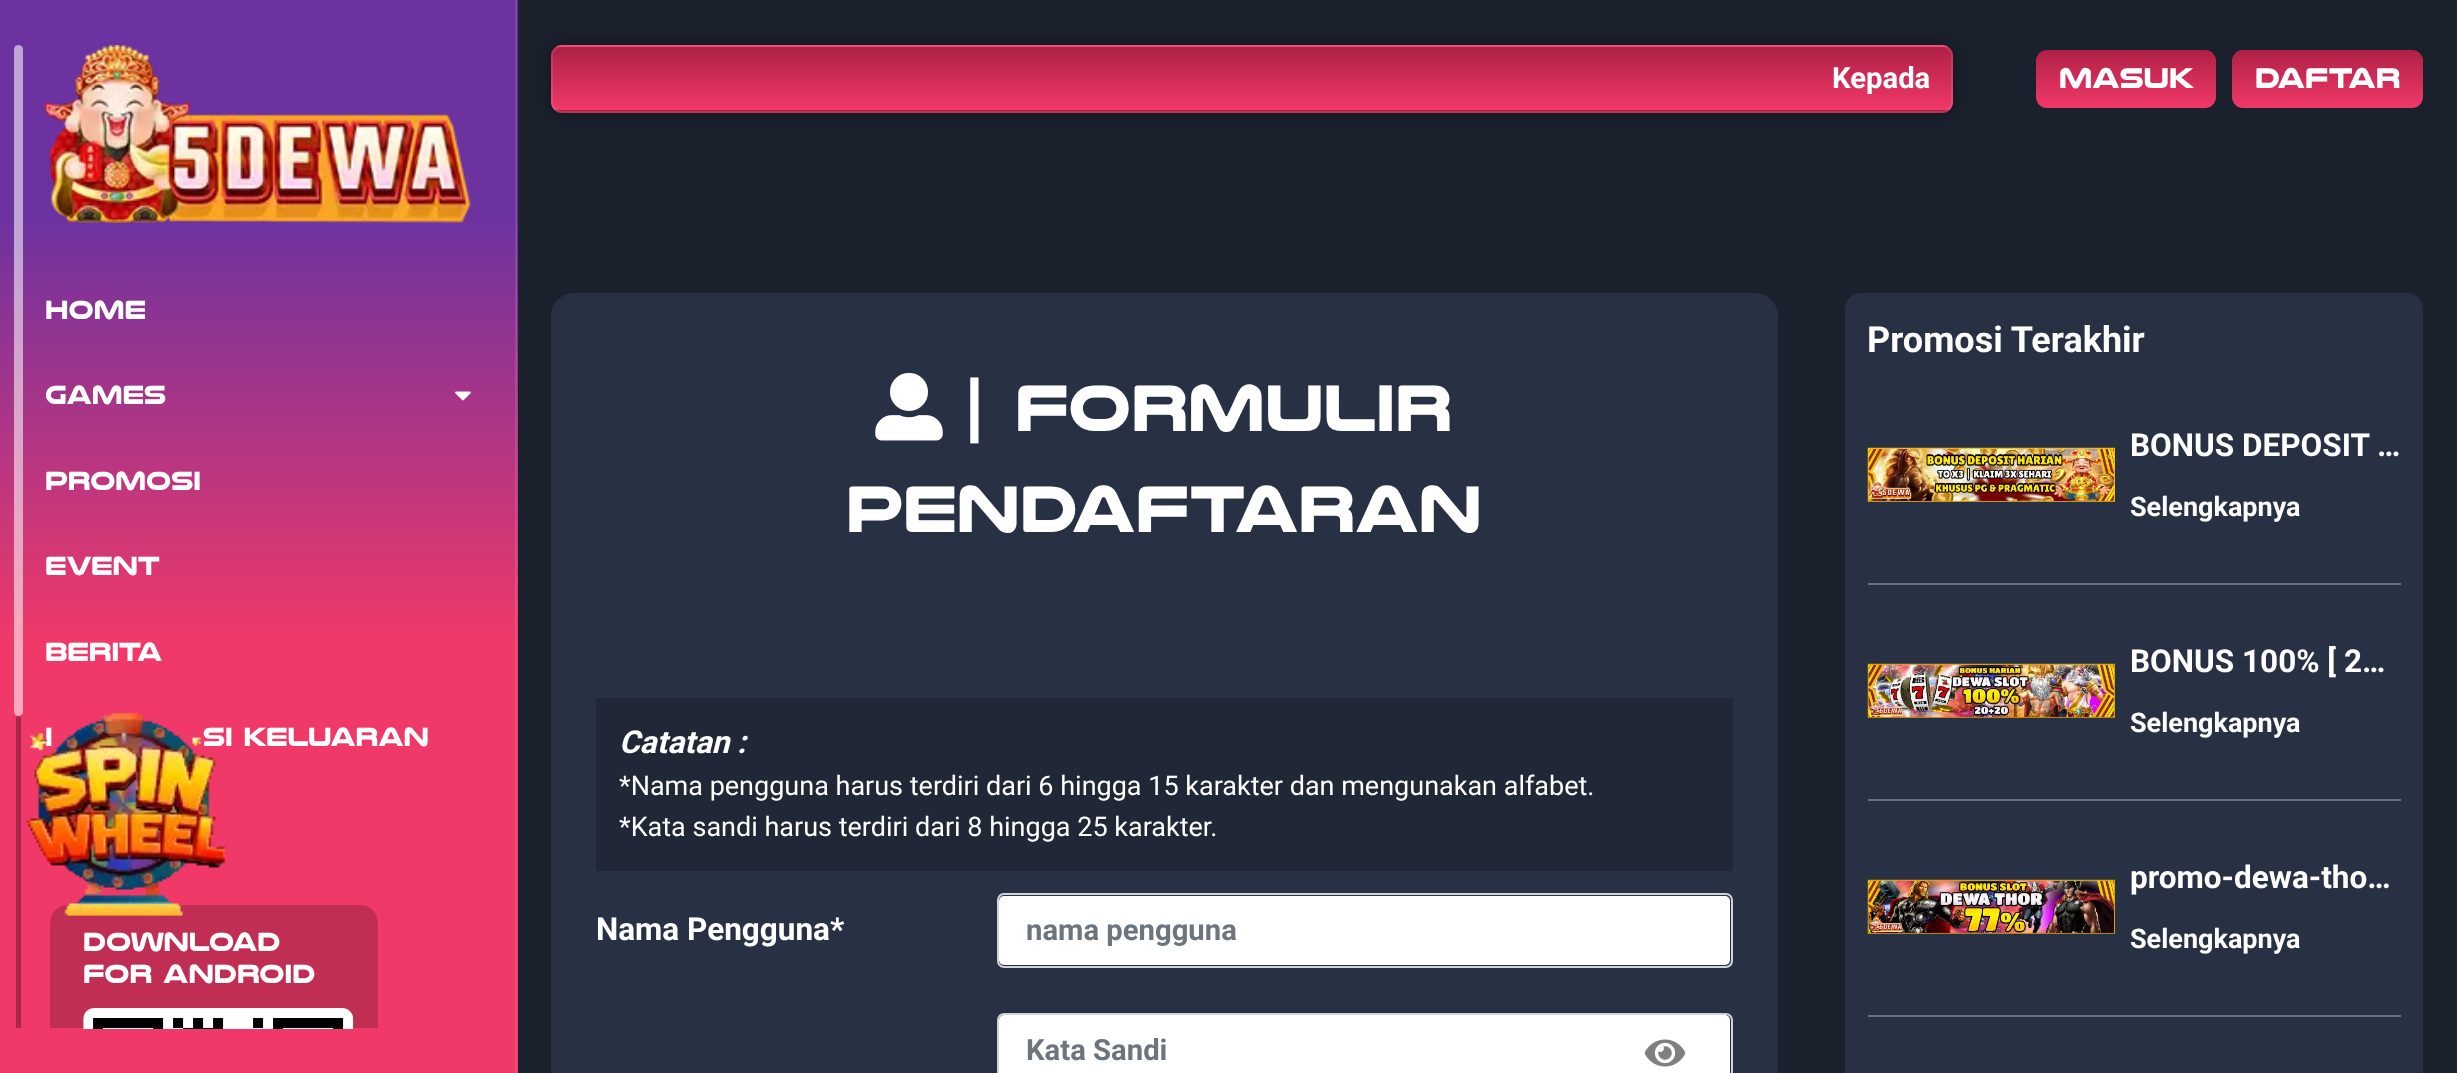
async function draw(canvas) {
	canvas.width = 2457;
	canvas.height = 1073;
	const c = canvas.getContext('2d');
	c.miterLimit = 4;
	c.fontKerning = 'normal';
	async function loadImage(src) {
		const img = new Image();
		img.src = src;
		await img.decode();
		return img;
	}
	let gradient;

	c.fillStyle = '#1a202c';
	c.fillRect(0, 0, 2457, 1073);
	c.fillStyle = '#00000059';
	c.filter = 'blur(7px)';
	c.beginPath();
	c.roundRect(551, 45, 1402, 68, 11);
	c.fill();
	c.filter = 'none';
	c.save();
	c.beginPath();
	c.roundRect(551, 45, 1402, 68, 11);
	c.clip();
	gradient = c.createLinearGradient(1252, -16, 1252, 47);
	gradient.addColorStop(0, '#ae2045');
	gradient.addColorStop(1, '#f13969');
	c.fillStyle = gradient;
	c.fillRect(551, 45, 1402, 2);
	gradient = c.createLinearGradient(1252, 47, 1252, 110);
	gradient.addColorStop(0, '#ae2045');
	gradient.addColorStop(1, '#f13969');
	c.fillStyle = gradient;
	c.fillRect(551, 47, 1402, 63);
	gradient = c.createLinearGradient(1252, 110, 1252, 173);
	gradient.addColorStop(0, '#ae2045');
	gradient.addColorStop(1, '#f13969');
	c.fillStyle = gradient;
	c.fillRect(551, 110, 1402, 3);
	c.restore();
	c.beginPath();
	c.roundRect(552, 46, 1400, 66, 10);
	c.strokeStyle = '#ffffff1a';
	c.lineWidth = 2;
	c.stroke();
	c.font = 'bold 29.25px Roboto';
	c.fillStyle = '#fff';
	c.fillText('Kepada', 1832, 88);
	gradient = c.createLinearGradient(2126, 49, 2126, 108);
	gradient.addColorStop(0, '#ae2045');
	gradient.addColorStop(1, '#f13969');
	c.fillStyle = gradient;
	c.beginPath();
	c.roundRect(2036, 50, 180, 58, 11);
	c.fill();
	c.font = 'bold 29.25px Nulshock';
	c.fillStyle = '#fff';
	c.fillText('MASUK', 2059, 88);
	gradient = c.createLinearGradient(2328, 49, 2328, 108);
	gradient.addColorStop(0, '#ae2045');
	gradient.addColorStop(1, '#f13969');
	c.fillStyle = gradient;
	c.beginPath();
	c.roundRect(2232, 50, 191, 58, 11);
	c.fill();
	c.fillStyle = '#fff';
	c.fillText('Daftar', 2255, 88);
	gradient = c.createLinearGradient(258, 0, 258, 1073);
	gradient.addColorStop(0.2, '#6c32a0');
	gradient.addColorStop(0.6, '#f13969');
	c.fillStyle = gradient;
	c.fillRect(0, 0, 518, 1073);
	gradient = c.createLinearGradient(258, 0, 258, 1073);
	gradient.addColorStop(0.2, '#7b47aa');
	gradient.addColorStop(0.6, '#f24d78');
	c.fillStyle = gradient;
	c.fillRect(515, 0, 2, 1073);
	c.fillStyle = '#ffffff8f';
	c.beginPath();
	c.roundRect(14, 45, 9, 671, 4.5);
	c.fill();
	c.fillStyle = '#a92849';
	c.beginPath();
	c.roundRect(16, 716, 5, 312, [2.5, 2.5, 0, 0]);
	c.fill();
	c.drawImage(await loadImage('img1.png'), 45, 45, 426, 178);
	c.font = 'bold 27px Nulshock';
	c.fillStyle = '#fff';
	c.fillText('Home', 45, 319);
	c.fillText('Games', 45, 404);
	c.drawImage(await loadImage('img2.png'), 455, 391, 16, 10);
	for (const [text, x, y] of [
		['Promosi', 45, 490],
		['Event', 45, 575],
		['Berita', 45, 661],
		['I', 45, 746],
		['si Keluaran', 203, 746],
	]) {
		c.fillText(text, x, y);
	}
	c.fillStyle = '#c12e54';
	c.beginPath();
	c.roundRect(45, 900, 338, 128, [23, 23, 0, 0]);
	c.fill();
	c.save();
	c.beginPath();
	c.rect(0, 45, 515, 983);
	c.clip();
	c.beginPath();
	c.roundRect(47.5, 902.5, 333, 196, 20.5);
	c.strokeStyle = '#f13969';
	c.lineWidth = 5;
	c.stroke();
	c.restore();
	c.fillStyle = '#fff';
	c.fillText('Download', 83, 951);
	c.fillText('For Android', 83, 983);
	c.drawImage(await loadImage('img3.png'), 83, 1008, 271, 21);
	c.fillStyle = '#283144';
	c.beginPath();
	c.roundRect(551, 293, 1227, 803, 23);
	c.fill();
	c.drawImage(await loadImage('img4.png'), 875, 372, 68, 69);
	c.font = 'bold 67.5px Nulshock';
	c.fillStyle = '#fff';
	c.fillText('| Formulir', 961, 431);
	c.fillText('Pendaftaran', 846, 532);
	c.fillStyle = '#202736';
	c.fillRect(596, 698, 1137, 173);
	c.font = 'italic bold 31.5px Roboto';
	c.fillStyle = '#fff';
	c.fillText('Catatan :', 619, 753);
	c.font = '27px Roboto';
	c.fillText('*Nama pengguna harus terdiri dari 6 hingga 15 karakter dan mengunakan alfabet.', 619, 795);
	c.fillText('*Kata sandi harus terdiri dari 8 hingga 25 karakter.', 619, 836);
	c.font = 'bold 31.5px Roboto';
	c.fillText('Nama Pengguna*', 596, 940);
	c.beginPath();
	c.roundRect(999, 896, 731, 69, 5);
	c.fill();
	c.beginPath();
	c.roundRect(998, 894, 734, 73, 6);
	c.strokeStyle = '#ced4da';
	c.stroke();
	c.font = 'bold 29.25px Roboto';
	c.fillStyle = '#6c757d';
	c.fillText('nama pengguna', 1026, 940);
	c.fillStyle = '#fff';
	c.beginPath();
	c.roundRect(999, 1015, 731, 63, 5);
	c.fill();
	c.beginPath();
	c.roundRect(998, 1014, 734, 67, 6);
	c.stroke();
	c.fillStyle = '#6c757d';
	c.fillText('Kata Sandi', 1026, 1060);
	c.drawImage(await loadImage('img5.png'), 1644, 1039, 42, 28);
	c.fillStyle = '#283144';
	c.beginPath();
	c.roundRect(1845, 293, 578, 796, 16);
	c.fill();
	c.font = 'bold 36px Roboto';
	c.fillStyle = '#fff';
	c.fillText('Promosi Terakhir', 1867, 352);
	c.fillStyle = '#696f7c';
	c.fillRect(1868, 583, 533, 2);
	c.drawImage(await loadImage('img6.png'), 1867, 447, 248, 55);
	c.font = 'bold 31.5px Roboto';
	c.fillStyle = '#fff';
	c.fillText('BONUS DEPOSIT …', 2130, 456);
	c.font = 'bold 27px Roboto';
	c.fillText('Selengkapnya', 2130, 516);
	c.fillStyle = '#696f7c';
	c.fillRect(1868, 799, 533, 2);
	c.drawImage(await loadImage('img7.png'), 1867, 663, 248, 55);
	c.font = 'bold 31.5px Roboto';
	c.fillStyle = '#fff';
	c.fillText('BONUS 100% [ 2…', 2130, 672);
	c.font = 'bold 27px Roboto';
	c.fillText('Selengkapnya', 2130, 732);
	c.fillStyle = '#696f7c';
	c.fillRect(1868, 1015, 533, 2);
	c.drawImage(await loadImage('img8.png'), 1867, 879, 248, 55);
	c.font = 'bold 31.5px Roboto';
	c.fillStyle = '#fff';
	c.fillText('promo-dewa-tho…', 2130, 888);
	c.font = 'bold 27px Roboto';
	c.fillText('Selengkapnya', 2130, 948);
	c.drawImage(await loadImage('img9.png'), 26, 713, 199, 203);
}

draw(document.querySelector('canvas'));
